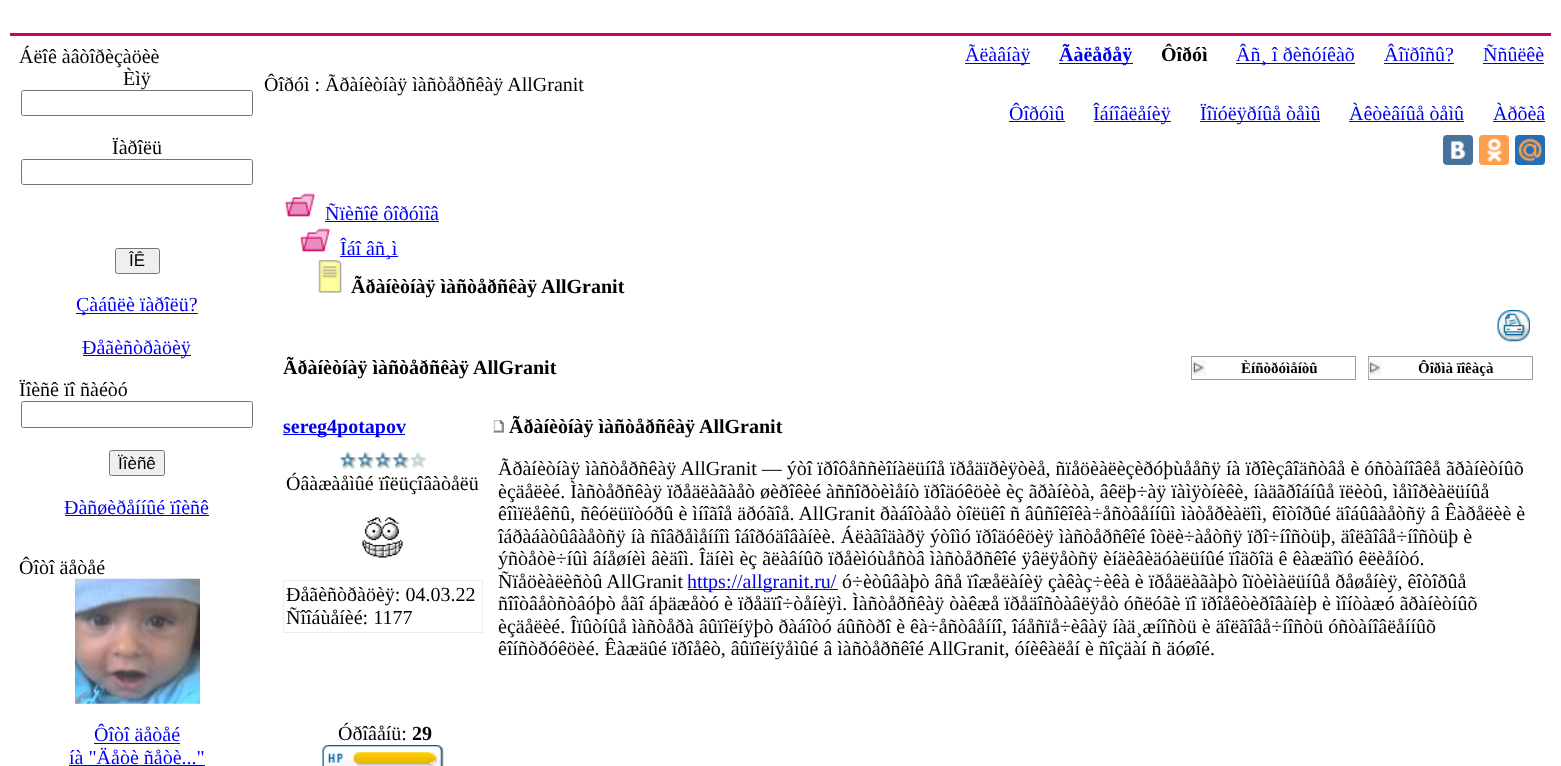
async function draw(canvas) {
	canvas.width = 1561;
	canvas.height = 766;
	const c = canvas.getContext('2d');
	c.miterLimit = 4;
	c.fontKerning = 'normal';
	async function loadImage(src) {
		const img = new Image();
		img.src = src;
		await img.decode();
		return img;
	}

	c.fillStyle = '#fff';
	c.fillRect(0, 0, 1561, 766);
	c.fillStyle = '#c06';
	c.fillRect(10, 33, 1541, 3);
	c.font = '20px Liberation Serif';
	c.fillStyle = '#000';
	c.fillText('Áëîê àâòîðèçàöèè', 19, 63);
	c.fillText('Èìÿ', 123, 85);
	c.beginPath();
	c.roundRect(21.5, 90.5, 231, 25, 2);
	c.strokeStyle = '#767676';
	c.stroke();
	c.fillText('Ïàðîëü', 112, 154);
	c.beginPath();
	c.roundRect(21.5, 159.5, 231, 25, 2);
	c.stroke();
	c.fillStyle = '#efefef';
	c.beginPath();
	c.roundRect(115.5, 248.5, 44, 25, 2);
	c.fill();
	c.stroke();
	c.font = '17px Liberation Sans';
	c.fillStyle = '#000';
	c.fillText('ÎÊ', 129, 266);
	c.fillStyle = '#00e';
	c.fillRect(76, 313, 122, 1);
	c.font = '20px Liberation Serif';
	c.fillText('Çàáûëè ïàðîëü?', 76, 311);
	c.fillRect(83, 355, 108, 1);
	c.fillText('Ðåãèñòðàöèÿ', 82, 354);
	c.fillStyle = '#000';
	c.fillText('Ïîèñê ïî ñàéòó', 19, 396);
	c.beginPath();
	c.roundRect(21.5, 401.5, 231, 26, 2);
	c.stroke();
	c.fillStyle = '#efefef';
	c.beginPath();
	c.roundRect(109.5, 450.5, 55, 25, 2);
	c.fill();
	c.stroke();
	c.font = '17px Liberation Sans';
	c.fillStyle = '#000';
	c.fillText('Ïîèñê', 118, 469);
	c.font = '20px Liberation Serif';
	c.fillStyle = '#00e';
	c.fillText('Ðàñøèðåííûé ïîèñê', 64, 514);
	c.fillRect(65, 515, 144, 1);
	c.fillStyle = '#000';
	c.fillText('Ôîòî äåòåé', 19, 574);
	c.drawImage(await loadImage('img1.png'), 75, 578, 125, 126);
	c.fillStyle = '#00e';
	c.fillText('Ôîòî äåòåé', 94, 741);
	c.fillRect(94, 743, 86, 1);
	c.fillText('íà "Äåòè ñåòè..."', 69, 764);
	c.fillRect(69, 765, 136, 1);
	c.fillRect(965, 63, 65, 1);
	c.fillText('Ãëàâíàÿ', 965, 61);
	c.fillRect(1059, 63, 74, 1);
	c.font = 'bold 20px Liberation Serif';
	c.fillText('Ãàëåðåÿ', 1059, 61);
	c.fillStyle = '#000';
	c.fillText('Ôîðóì', 1161, 61);
	c.fillStyle = '#00e';
	c.fillRect(1236, 63, 119, 1);
	c.font = '20px Liberation Serif';
	c.fillText('Âñ¸ î ðèñóíêàõ', 1236, 61);
	c.fillText('Âîïðîñû?', 1384, 61);
	c.fillRect(1384, 63, 70, 1);
	c.fillText('Ññûëêè', 1483, 61);
	c.fillRect(1483, 63, 61, 1);
	c.fillStyle = '#000';
	c.fillText('Ôîðóì : Ãðàíèòíàÿ ìàñòåðñêàÿ AllGranit', 264, 91);
	c.fillStyle = '#00e';
	c.fillText('Ôîðóìû', 1009, 120);
	c.fillRect(1009, 121, 56, 1);
	c.fillRect(1094, 121, 77, 1);
	c.fillText('Îáíîâëåíèÿ', 1093, 120);
	c.fillRect(1200, 121, 120, 1);
	c.fillText('Ïîïóëÿðíûå òåìû', 1200, 120);
	c.fillText('Àêòèâíûå òåìû', 1349, 120);
	c.fillRect(1349, 121, 115, 1);
	c.fillText('Àðõèâ', 1493, 120);
	c.fillRect(1493, 121, 52, 1);
	c.fillStyle = '#48729e';
	c.beginPath();
	c.roundRect(1443, 135, 30, 30, 4);
	c.fill();
	c.drawImage(await loadImage('img2.png'), 1451, 141, 15, 18);
	c.fillStyle = '#ff9f4d';
	c.beginPath();
	c.roundRect(1479, 135, 30, 30, 4);
	c.fill();
	c.drawImage(await loadImage('img3.png'), 1487, 138, 15, 24);
	c.fillStyle = '#226eb7';
	c.beginPath();
	c.roundRect(1515, 135, 30, 30, 4);
	c.fill();
	c.drawImage(await loadImage('img4.png'), 1518, 138, 24, 24);
	c.drawImage(await loadImage('img5.png'), 285, 193, 30, 24);
	c.fillStyle = '#00e';
	c.fillText('Ñïèñîê ôîðóìîâ', 325, 220);
	c.fillRect(325, 221, 114, 1);
	c.drawImage(await loadImage('img6.png'), 300, 228, 30, 24);
	c.fillRect(340, 256, 58, 1);
	c.fillText('Îáî âñ¸ì', 340, 255);
	c.drawImage(await loadImage('img7.png'), 318, 260, 24, 33);
	c.font = 'bold 20px Liberation Serif';
	c.fillStyle = '#000';
	c.fillText('Ãðàíèòíàÿ ìàñòåðñêàÿ AllGranit', 351, 293);
	c.drawImage(await loadImage('img8.png'), 1497, 310, 33, 32);
	c.fillText('Ãðàíèòíàÿ ìàñòåðñêàÿ AllGranit', 283, 374);
	c.strokeStyle = '#9d9da1';
	c.strokeRect(1191.5, 356.5, 164, 23);
	c.drawImage(await loadImage('img9.png'), 1192, 360, 14, 16);
	c.font = 'bold 15px Liberation Serif';
	c.fillText('Èíñòðóìåíòû', 1241, 373);
	c.strokeRect(1368.5, 356.5, 164, 23);
	c.drawImage(await loadImage('img10.png'), 1368, 360, 14, 17);
	c.fillText('Ôîðìà ïîêàçà', 1418, 373);
	c.fillStyle = '#00e';
	c.fillRect(283, 434, 122, 1);
	c.font = 'bold 20px Liberation Serif';
	c.fillText('sereg4potapov', 283, 433);
	c.drawImage(await loadImage('img11.png'), 493, 420, 11, 13);
	c.fillStyle = '#000';
	c.fillText('Ãðàíèòíàÿ ìàñòåðñêàÿ AllGranit', 509, 433);
	c.drawImage(await loadImage('img12.png'), 339, 451, 88, 18);
	c.font = '20px Liberation Serif';
	c.fillText('Óâàæàåìûé ïîëüçîâàòåëü', 286, 490);
	c.drawImage(await loadImage('img13.png'), 362, 517, 41, 41);
	c.strokeStyle = '#ececec';
	c.strokeRect(283.5, 580.5, 199, 52);
	for (const [text, x, y] of [
		['Ðåãèñòðàöèÿ: 04.03.22', 286, 601],
		['Ñîîáùåíèé: 1177', 286, 624],
		['Óðîâåíü:', 338, 740],
	]) {
		c.fillText(text, x, y);
	}
	c.font = 'bold 20px Liberation Serif';
	c.fillText('29', 412, 740);
	c.drawImage(await loadImage('img14.png'), 322, 745, 122, 21);
	c.drawImage(await loadImage('img15.png'), 358, 752, 72, 12);
	c.drawImage(await loadImage('img16.png'), 430, 752, 5, 12);
	c.font = '20px Liberation Serif';
	for (const [text, x, y] of [
		['Ãðàíèòíàÿ ìàñòåðñêàÿ AllGranit — ýòî ïðîôåññèîíàëüíîå ïðåäïðèÿòèå, ñïåöèàëèçèðóþùååñÿ íà ïðîèçâîäñòâå è óñòàíîâêå ãðàíèòíûõ', 498, 475],
		['èçäåëèé. Ìàñòåðñêàÿ ïðåäëàãàåò øèðîêèé àññîðòèìåíò ïðîäóêöèè èç ãðàíèòà, âêëþ÷àÿ ïàìÿòíèêè, íàäãðîáíûå ïëèòû, ìåìîðèàëüíûå', 498, 498],
		['êîìïëåêñû, ñêóëüïòóðû è ìíîãîå äðóãîå. AllGranit ðàáîòàåò òîëüêî ñ âûñîêîêà÷åñòâåííûì ìàòåðèàëîì, êîòîðûé äîáûâàåòñÿ â Êàðåëèè è', 498, 520],
		['îáðàáàòûâàåòñÿ íà ñîâðåìåííîì îáîðóäîâàíèè. Áëàãîäàðÿ ýòîìó ïðîäóêöèÿ ìàñòåðñêîé îòëè÷àåòñÿ ïðî÷íîñòüþ, äîëãîâå÷íîñòüþ è', 498, 543],
		['ýñòåòè÷íûì âíåøíèì âèäîì. Îäíèì èç ãëàâíûõ ïðåèìóùåñòâ ìàñòåðñêîé ÿâëÿåòñÿ èíäèâèäóàëüíûé ïîäõîä ê êàæäîìó êëèåíòó.', 498, 565],
		['Ñïåöèàëèñòû AllGranit', 498, 588],
	]) {
		c.fillText(text, x, y);
	}
	c.fillStyle = '#00e';
	c.fillRect(688, 589, 150, 1);
	c.fillText('https://allgranit.ru/', 687, 588);
	c.fillStyle = '#000';
	for (const [text, x, y] of [
		['ó÷èòûâàþò âñå ïîæåëàíèÿ çàêàç÷èêà è ïðåäëàãàþò îïòèìàëüíûå ðåøåíèÿ, êîòîðûå', 842, 588],
		['ñîîòâåòñòâóþò åãî áþäæåòó è ïðåäïî÷òåíèÿì. Ìàñòåðñêàÿ òàêæå ïðåäîñòàâëÿåò óñëóãè ïî ïðîåêòèðîâàíèþ è ìîíòàæó ãðàíèòíûõ', 498, 610],
		['èçäåëèé. Îïûòíûå ìàñòåðà âûïîëíÿþò ðàáîòó áûñòðî è êà÷åñòâåííî, îáåñïå÷èâàÿ íàä¸æíîñòü è äîëãîâå÷íîñòü óñòàíîâëåííûõ', 498, 633],
		['êîíñòðóêöèé. Êàæäûé ïðîåêò, âûïîëíÿåìûé â ìàñòåðñêîé AllGranit, óíèêàëåí è ñîçäàí ñ äóøîé.', 498, 655],
	]) {
		c.fillText(text, x, y);
	}
}

draw(document.querySelector('canvas'));
